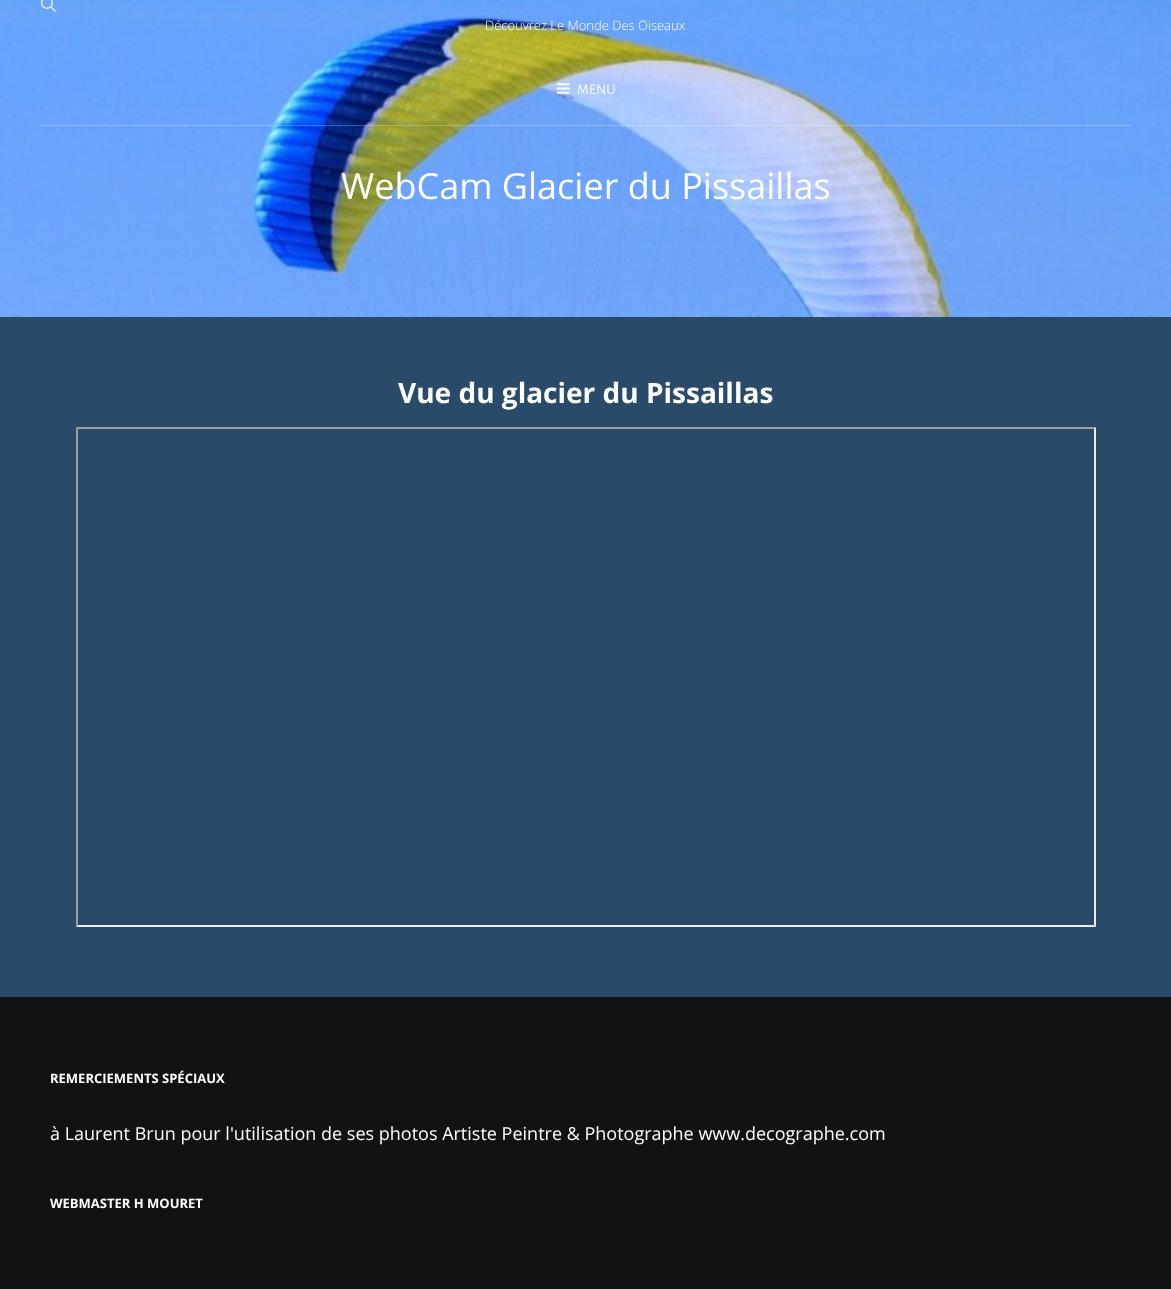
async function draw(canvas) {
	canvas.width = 1171;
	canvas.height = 1289;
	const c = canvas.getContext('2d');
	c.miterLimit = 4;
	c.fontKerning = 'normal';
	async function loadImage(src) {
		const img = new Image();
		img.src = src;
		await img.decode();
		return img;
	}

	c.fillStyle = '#294a68';
	c.fillRect(0, 0, 1171, 1289);
	c.drawImage(await loadImage('img3.png'), 0, 0, 1171, 317);
	c.drawImage(await loadImage('img1.png'), 41, 0, 15, 12);
	c.font = '300 13px Open Sans';
	c.fillStyle = '#fff';
	c.fillText('Découvrez Le Monde Des Oiseaux', 485, 30);
	c.drawImage(await loadImage('img2.png'), 556, 83, 14, 11);
	c.font = '15px Alegreya Sans';
	c.fillStyle = '#f7faff';
	c.fillText('MENU', 577, 94);
	c.fillStyle = '#ffffff40';
	c.fillRect(40, 125, 1091, 1);
	c.font = '36px Open Sans';
	c.fillStyle = '#fff';
	c.fillText('WebCam Glacier du Pissaillas', 341, 199);
	c.font = 'bold 28px Open Sans';
	c.fillText('Vue du glacier du Pissaillas', 398, 403);
	c.fillStyle = '#9f9f9f';
	c.beginPath();
	c.moveTo(76, 427);
	c.lineTo(1096, 427);
	c.lineTo(1094, 429);
	c.lineTo(78, 429);
	c.closePath();
	c.fill();
	c.fillStyle = '#eee';
	c.beginPath();
	c.moveTo(1096, 427);
	c.lineTo(1096, 927);
	c.lineTo(1094, 925);
	c.lineTo(1094, 429);
	c.closePath();
	c.fill();
	c.beginPath();
	c.moveTo(1096, 927);
	c.lineTo(76, 927);
	c.lineTo(78, 925);
	c.lineTo(1094, 925);
	c.closePath();
	c.fill();
	c.fillStyle = '#9f9f9f';
	c.beginPath();
	c.moveTo(76, 927);
	c.lineTo(76, 427);
	c.lineTo(78, 429);
	c.lineTo(78, 925);
	c.closePath();
	c.fill();
	c.fillStyle = '#121212';
	c.fillRect(0, 997, 1171, 292);
	c.font = 'bold 13px Open Sans';
	c.fillStyle = '#fff';
	c.fillText('REMERCIEMENTS SPÉCIAUX', 50, 1083);
	c.font = '18px Open Sans';
	c.fillText('à Laurent Brun pour l\'utilisation de ses photos Artiste Peintre & Photographe www.decographe.com', 50, 1140);
	c.font = 'bold 13px Open Sans';
	c.fillText('WEBMASTER H MOURET', 50, 1208);
}

draw(document.querySelector('canvas'));
